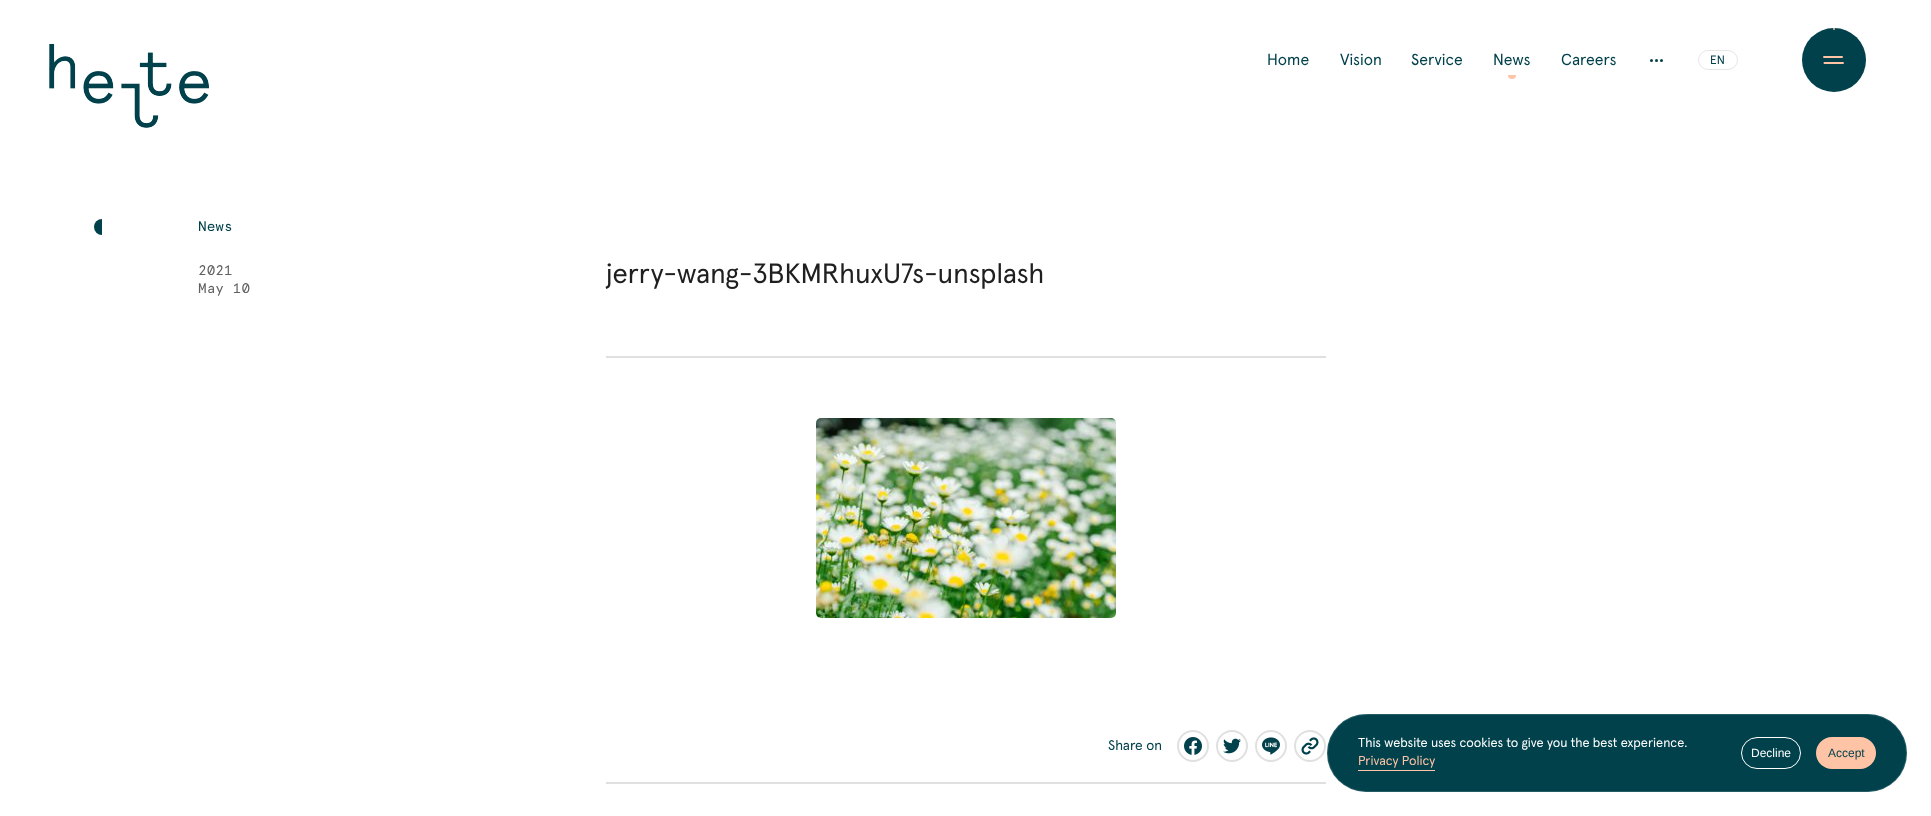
async function draw(canvas) {
	canvas.width = 1931;
	canvas.height = 816;
	const c = canvas.getContext('2d');
	c.miterLimit = 4;
	c.fontKerning = 'normal';
	async function loadImage(src) {
		const img = new Image();
		img.src = src;
		await img.decode();
		return img;
	}

	c.fillStyle = '#fff';
	c.fillRect(0, 0, 1931, 816);
	c.drawImage(await loadImage('img1.png'), 49, 44, 160, 84);
	c.font = '16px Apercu';
	c.fillStyle = '#00414b';
	for (const [text, x, y] of [
		['Home', 1267, 65],
		['Vision', 1340, 65],
		['Service', 1411, 65],
		['News', 1493, 65],
	]) {
		c.fillText(text, x, y);
	}
	c.fillStyle = '#ffc3a5';
	c.beginPath();
	c.roundRect(1508, 75, 8, 4, [0, 0, 4, 4]);
	c.fill();
	c.fillStyle = '#00414b';
	c.fillText('Careers', 1561, 65);
	c.beginPath();
	c.arc(1651.5, 60.5, 1.5, 0, 2 * Math.PI);
	c.fill();
	c.beginPath();
	c.arc(1656.5, 60.5, 1.5, 0, 2 * Math.PI);
	c.fill();
	c.beginPath();
	c.arc(1661.5, 60.5, 1.5, 0, 2 * Math.PI);
	c.fill();
	c.beginPath();
	c.roundRect(1698.5, 50.5, 39, 19, 9.5);
	c.strokeStyle = '#e6e6e6';
	c.stroke();
	c.font = '12px Apercu';
	c.fillText('EN', 1710, 64);
	c.beginPath();
	c.arc(1834, 60, 32, 0, 2 * Math.PI);
	c.fill();
	c.beginPath();
	c.moveTo(1824, 57);
	c.lineTo(1842, 57);
	c.moveTo(1824.5, 63);
	c.lineTo(1843, 63);
	c.strokeStyle = '#ffc3a5';
	c.lineWidth = 2;
	c.lineCap = 'round';
	c.stroke();
	c.beginPath();
	c.moveTo(1834, 29);
	c.bezierCurveTo(1851, 29, 1865, 43, 1865, 60);
	c.bezierCurveTo(1865, 77, 1851, 91, 1834, 91);
	c.bezierCurveTo(1817, 91, 1803, 77, 1803, 60);
	c.bezierCurveTo(1803, 43, 1817, 29, 1834, 29);
	c.setLineDash([0, 999999]);
	c.stroke();
	c.beginPath();
	c.roundRect(94, 219, 8, 16, [8, 0, 0, 8]);
	c.fill();
	c.font = '14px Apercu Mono';
	c.fillText('News', 198, 231);
	c.fillStyle = '#606060';
	c.fillText('2021', 198, 275);
	c.fillText('May 10', 198, 293);
	c.fillStyle = '#e0e0e0';
	c.fillRect(606, 356, 720, 2);
	c.font = '28px Apercu';
	c.fillStyle = '#1f1f1f';
	c.fillText('jerry-wang-3BKMRhuxU7s-unsplash', 606, 283);
	c.drawImage(await loadImage('img2.png'), 816, 418, 300, 200);
	c.font = '14px Apercu';
	c.fillStyle = '#00414b';
	c.fillText('Share on', 1108, 750);
	c.beginPath();
	c.arc(1193, 746, 15, 0, 2 * Math.PI);
	c.strokeStyle = '#e0e0e0';
	c.setLineDash([]);
	c.stroke();
	c.drawImage(await loadImage('img3.png'), 1184, 737, 18, 18);
	c.beginPath();
	c.arc(1232, 746, 15, 0, 2 * Math.PI);
	c.stroke();
	c.drawImage(await loadImage('img4.png'), 1223, 738, 18, 16);
	c.beginPath();
	c.arc(1271, 746, 15, 0, 2 * Math.PI);
	c.stroke();
	c.drawImage(await loadImage('img5.png'), 1262, 737, 18, 18);
	c.beginPath();
	c.arc(1310, 746, 15, 0, 2 * Math.PI);
	c.stroke();
	c.drawImage(await loadImage('img6.png'), 1301, 737, 18, 18);
	c.fillStyle = '#e0e0e0';
	c.fillRect(606, 782, 720, 2);
	c.fillStyle = '#00414b';
	c.beginPath();
	c.roundRect(1327, 714, 580, 78, 39);
	c.fill();
	c.beginPath();
	c.roundRect(1327.5, 714.5, 579, 77, 38.5);
	c.strokeStyle = '#ffffff26';
	c.lineWidth = 1;
	c.stroke();
	c.font = '13px Apercu';
	c.fillStyle = '#fff';
	c.fillText('This website uses cookies to give you the best experience.', 1358, 747);
	c.fillStyle = '#ffc3a5';
	c.fillText('Privacy Policy', 1358, 765);
	c.fillRect(1358, 770, 77, 1);
	c.beginPath();
	c.roundRect(1741.5, 737.5, 59, 31, 15.5);
	c.strokeStyle = '#fff';
	c.stroke();
	c.font = '12px Liberation Sans';
	c.fillStyle = '#fff';
	c.fillText('Decline', 1751, 757);
	c.fillStyle = '#ffc3a5';
	c.beginPath();
	c.roundRect(1816, 737, 60, 32, 16);
	c.fill();
	c.fillStyle = '#00414b';
	c.fillText('Accept', 1828, 757);
}

draw(document.querySelector('canvas'));
